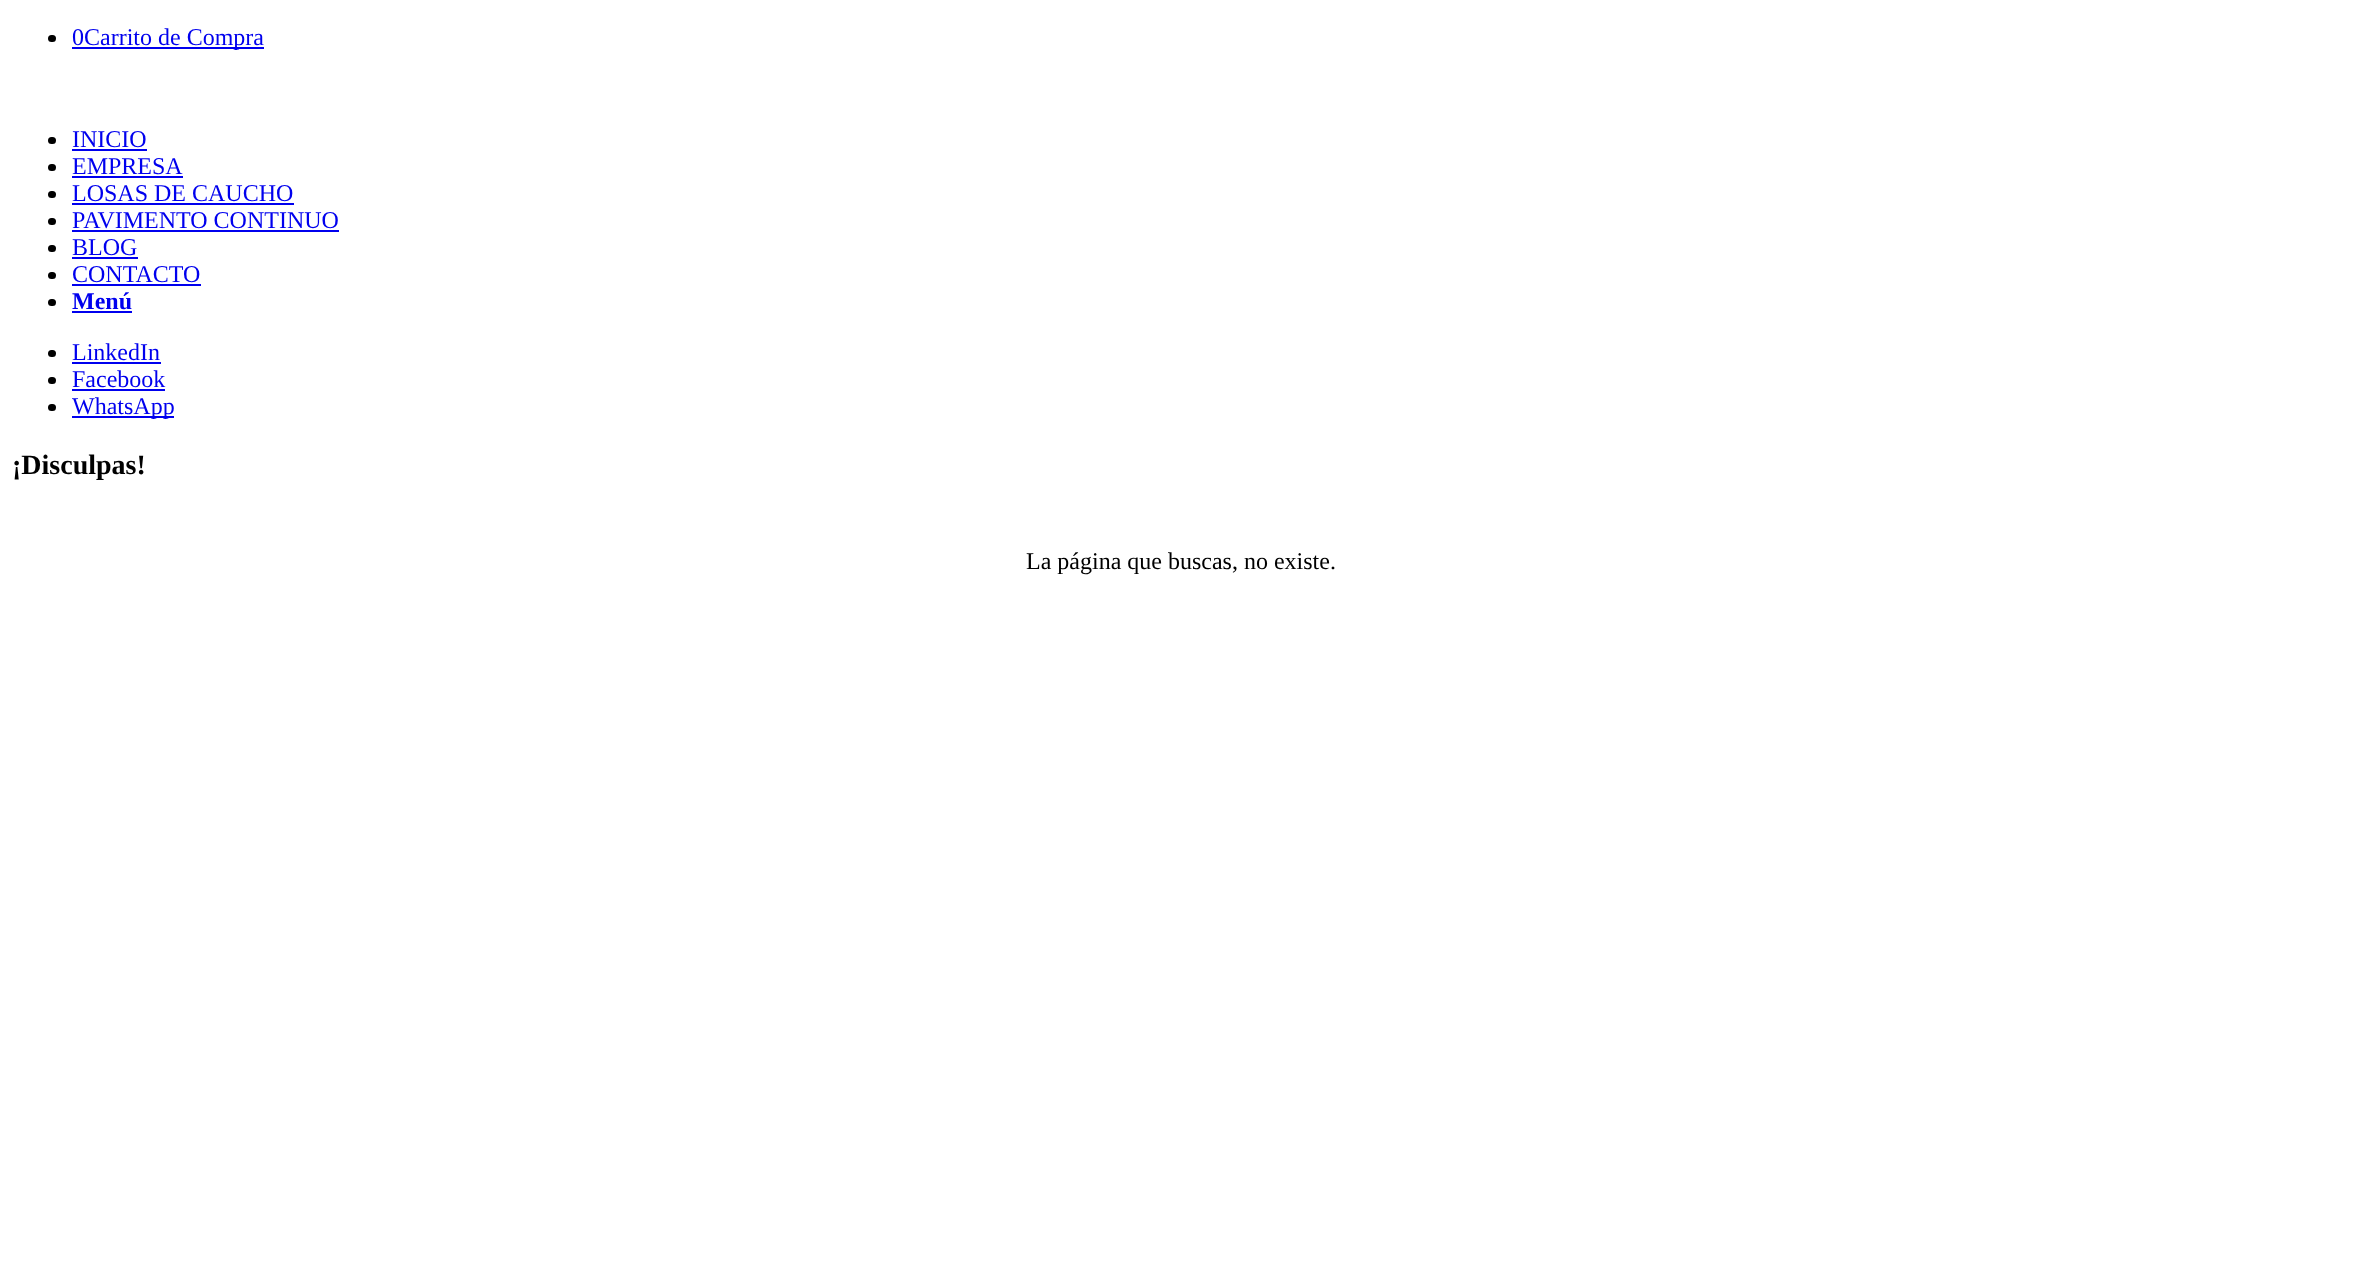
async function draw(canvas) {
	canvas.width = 2362;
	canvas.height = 1263;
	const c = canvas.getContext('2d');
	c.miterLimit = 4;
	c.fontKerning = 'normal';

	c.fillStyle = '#fff';
	c.fillRect(0, 0, 2362, 1263);
	c.fillStyle = '#000';
	c.beginPath();
	c.roundRect(48, 35, 8, 7, 3.5);
	c.fill();
	c.fillStyle = '#00e';
	c.fillRect(72, 47, 192, 2);
	c.font = '24px Liberation Serif';
	c.fillText('0Carrito de Compra', 72, 45);
	c.fillStyle = '#000';
	c.beginPath();
	c.roundRect(48, 137, 8, 7, 3.5);
	c.fill();
	c.fillStyle = '#00e';
	c.fillText('INICIO', 72, 147);
	c.fillRect(72, 149, 75, 2);
	c.fillStyle = '#000';
	c.beginPath();
	c.roundRect(48, 164, 8, 7, 3.5);
	c.fill();
	c.fillStyle = '#00e';
	c.fillText('EMPRESA', 72, 174);
	c.fillRect(72, 176, 111, 2);
	c.fillStyle = '#000';
	c.beginPath();
	c.roundRect(48, 191, 8, 7, 3.5);
	c.fill();
	c.fillStyle = '#00e';
	c.fillText('LOSAS DE CAUCHO', 72, 201);
	c.fillRect(72, 203, 222, 2);
	c.fillStyle = '#000';
	c.beginPath();
	c.roundRect(48, 218, 8, 7, 3.5);
	c.fill();
	c.fillStyle = '#00e';
	c.fillText('PAVIMENTO CONTINUO', 72, 228);
	c.fillRect(72, 230, 267, 2);
	c.fillStyle = '#000';
	c.beginPath();
	c.roundRect(48, 245, 8, 7, 3.5);
	c.fill();
	c.fillStyle = '#00e';
	c.fillText('BLOG', 72, 255);
	c.fillRect(72, 257, 66, 2);
	c.fillStyle = '#000';
	c.beginPath();
	c.roundRect(48, 272, 8, 7, 3.5);
	c.fill();
	c.fillStyle = '#00e';
	c.fillText('CONTACTO', 72, 282);
	c.fillRect(72, 284, 129, 2);
	c.fillStyle = '#000';
	c.beginPath();
	c.roundRect(48, 299, 8, 7, 3.5);
	c.fill();
	c.font = 'bold 24px Liberation Serif';
	c.fillStyle = '#00e';
	c.fillText('Menú', 72, 309);
	c.fillRect(72, 311, 60, 2);
	c.fillStyle = '#000';
	c.beginPath();
	c.roundRect(48, 350, 8, 7, 3.5);
	c.fill();
	c.font = '24px Liberation Serif';
	c.fillStyle = '#00e';
	c.fillText('LinkedIn', 72, 360);
	c.fillRect(72, 362, 89, 2);
	c.fillStyle = '#000';
	c.beginPath();
	c.roundRect(48, 377, 8, 7, 3.5);
	c.fill();
	c.fillStyle = '#00e';
	c.fillText('Facebook', 72, 387);
	c.fillRect(72, 389, 93, 2);
	c.fillStyle = '#000';
	c.beginPath();
	c.roundRect(48, 404, 8, 7, 3.5);
	c.fill();
	c.fillStyle = '#00e';
	c.fillRect(72, 416, 102, 2);
	c.fillText('WhatsApp', 72, 414);
	c.font = 'bold 28px Liberation Serif';
	c.fillStyle = '#000';
	c.fillText('¡Disculpas!', 12, 474);
	c.font = '24px Liberation Serif';
	c.fillText('La página que buscas, no existe.', 1026, 569);
}

draw(document.querySelector('canvas'));
